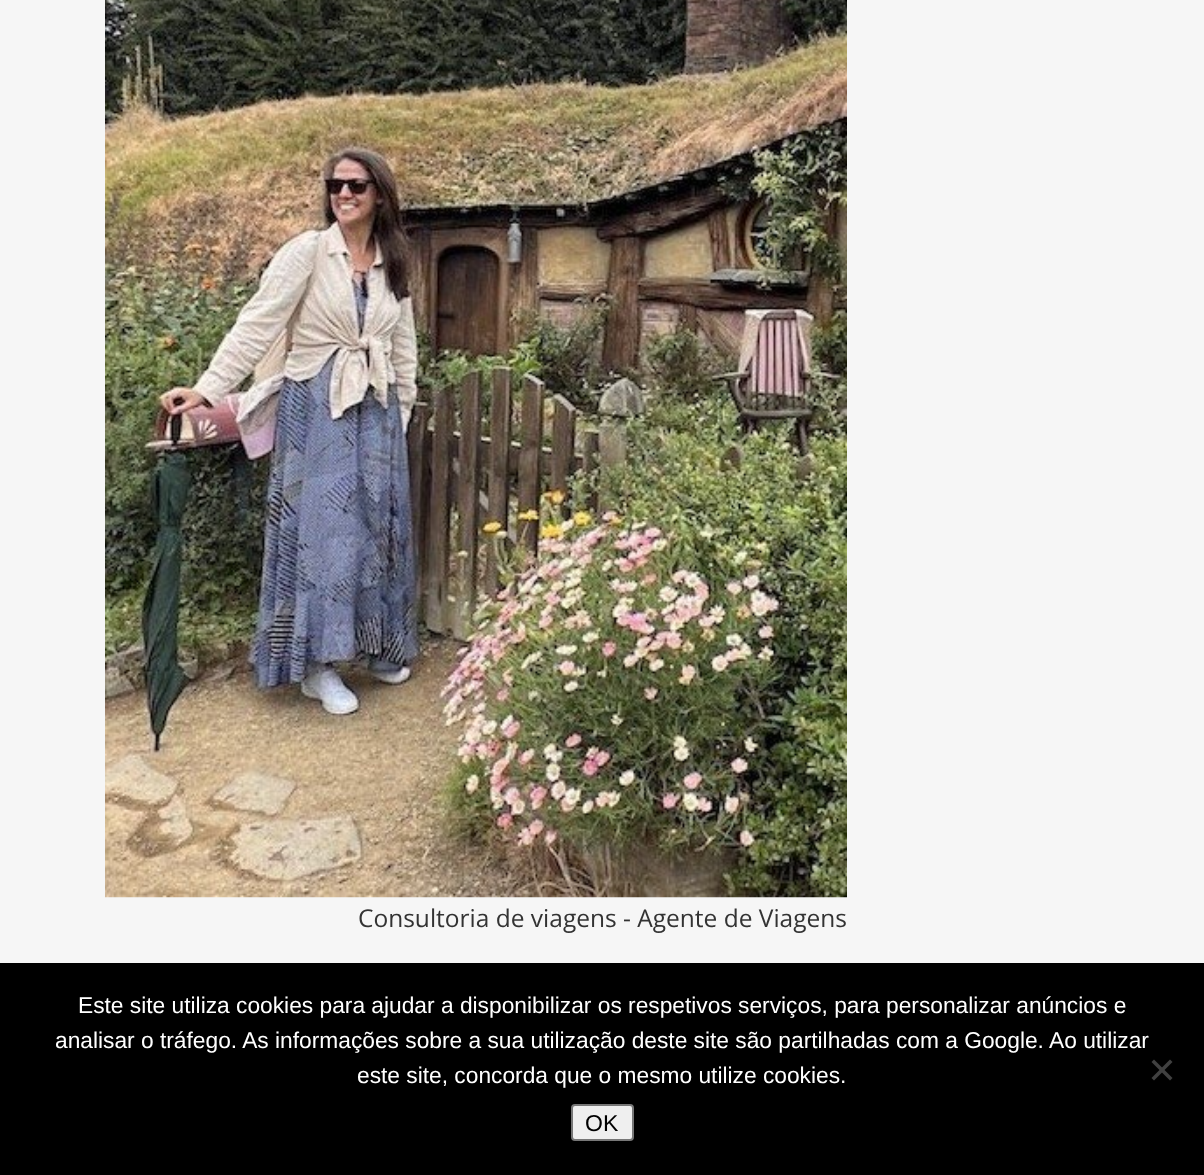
async function draw(canvas) {
	canvas.width = 1204;
	canvas.height = 1175;
	const c = canvas.getContext('2d');
	c.miterLimit = 4;
	c.fontKerning = 'normal';
	async function loadImage(src) {
		const img = new Image();
		img.src = src;
		await img.decode();
		return img;
	}

	c.fillStyle = '#f6f6f6';
	c.fillRect(0, 0, 1204, 1175);
	c.drawImage(await loadImage('img1.png'), 105, 0, 742, 898);
	c.font = '24.5px Open Sans';
	c.fillStyle = '#333';
	c.fillText('Consultoria de viagens - Agente de Viagens', 358, 927);
	c.fillStyle = '#000';
	c.fillRect(0, 963, 1204, 212);
	c.font = '22.75px Liberation Sans';
	c.fillStyle = '#fff';
	for (const [text, x, y] of [
		['Este site utiliza cookies para ajudar a disponibilizar os respetivos serviços, para personalizar anúncios e', 78, 1013],
		['analisar o tráfego. As informações sobre a sua utilização deste site são partilhadas com a Google. Ao utilizar', 55, 1048],
		['este site, concorda que o mesmo utilize cookies.', 357, 1083],
	]) {
		c.fillText(text, x, y);
	}
	c.fillStyle = '#404040';
	c.beginPath();
	c.moveTo(1170, 1059.5);
	c.lineTo(1172.5, 1062);
	c.lineTo(1154, 1080.5);
	c.lineTo(1151.5, 1078);
	c.closePath();
	c.fill();
	c.beginPath();
	c.moveTo(1151.5, 1062);
	c.lineTo(1154, 1059.5);
	c.lineTo(1172.5, 1078);
	c.lineTo(1170, 1080.5);
	c.closePath();
	c.fill();
	c.fillStyle = '#efefef';
	c.beginPath();
	c.roundRect(572, 1105, 61, 35, 3);
	c.fill();
	c.strokeStyle = '#767676';
	c.lineWidth = 2;
	c.stroke();
	c.font = '23px Liberation Sans';
	c.fillStyle = '#000';
	c.fillText('OK', 585, 1131);
}

draw(document.querySelector('canvas'));
